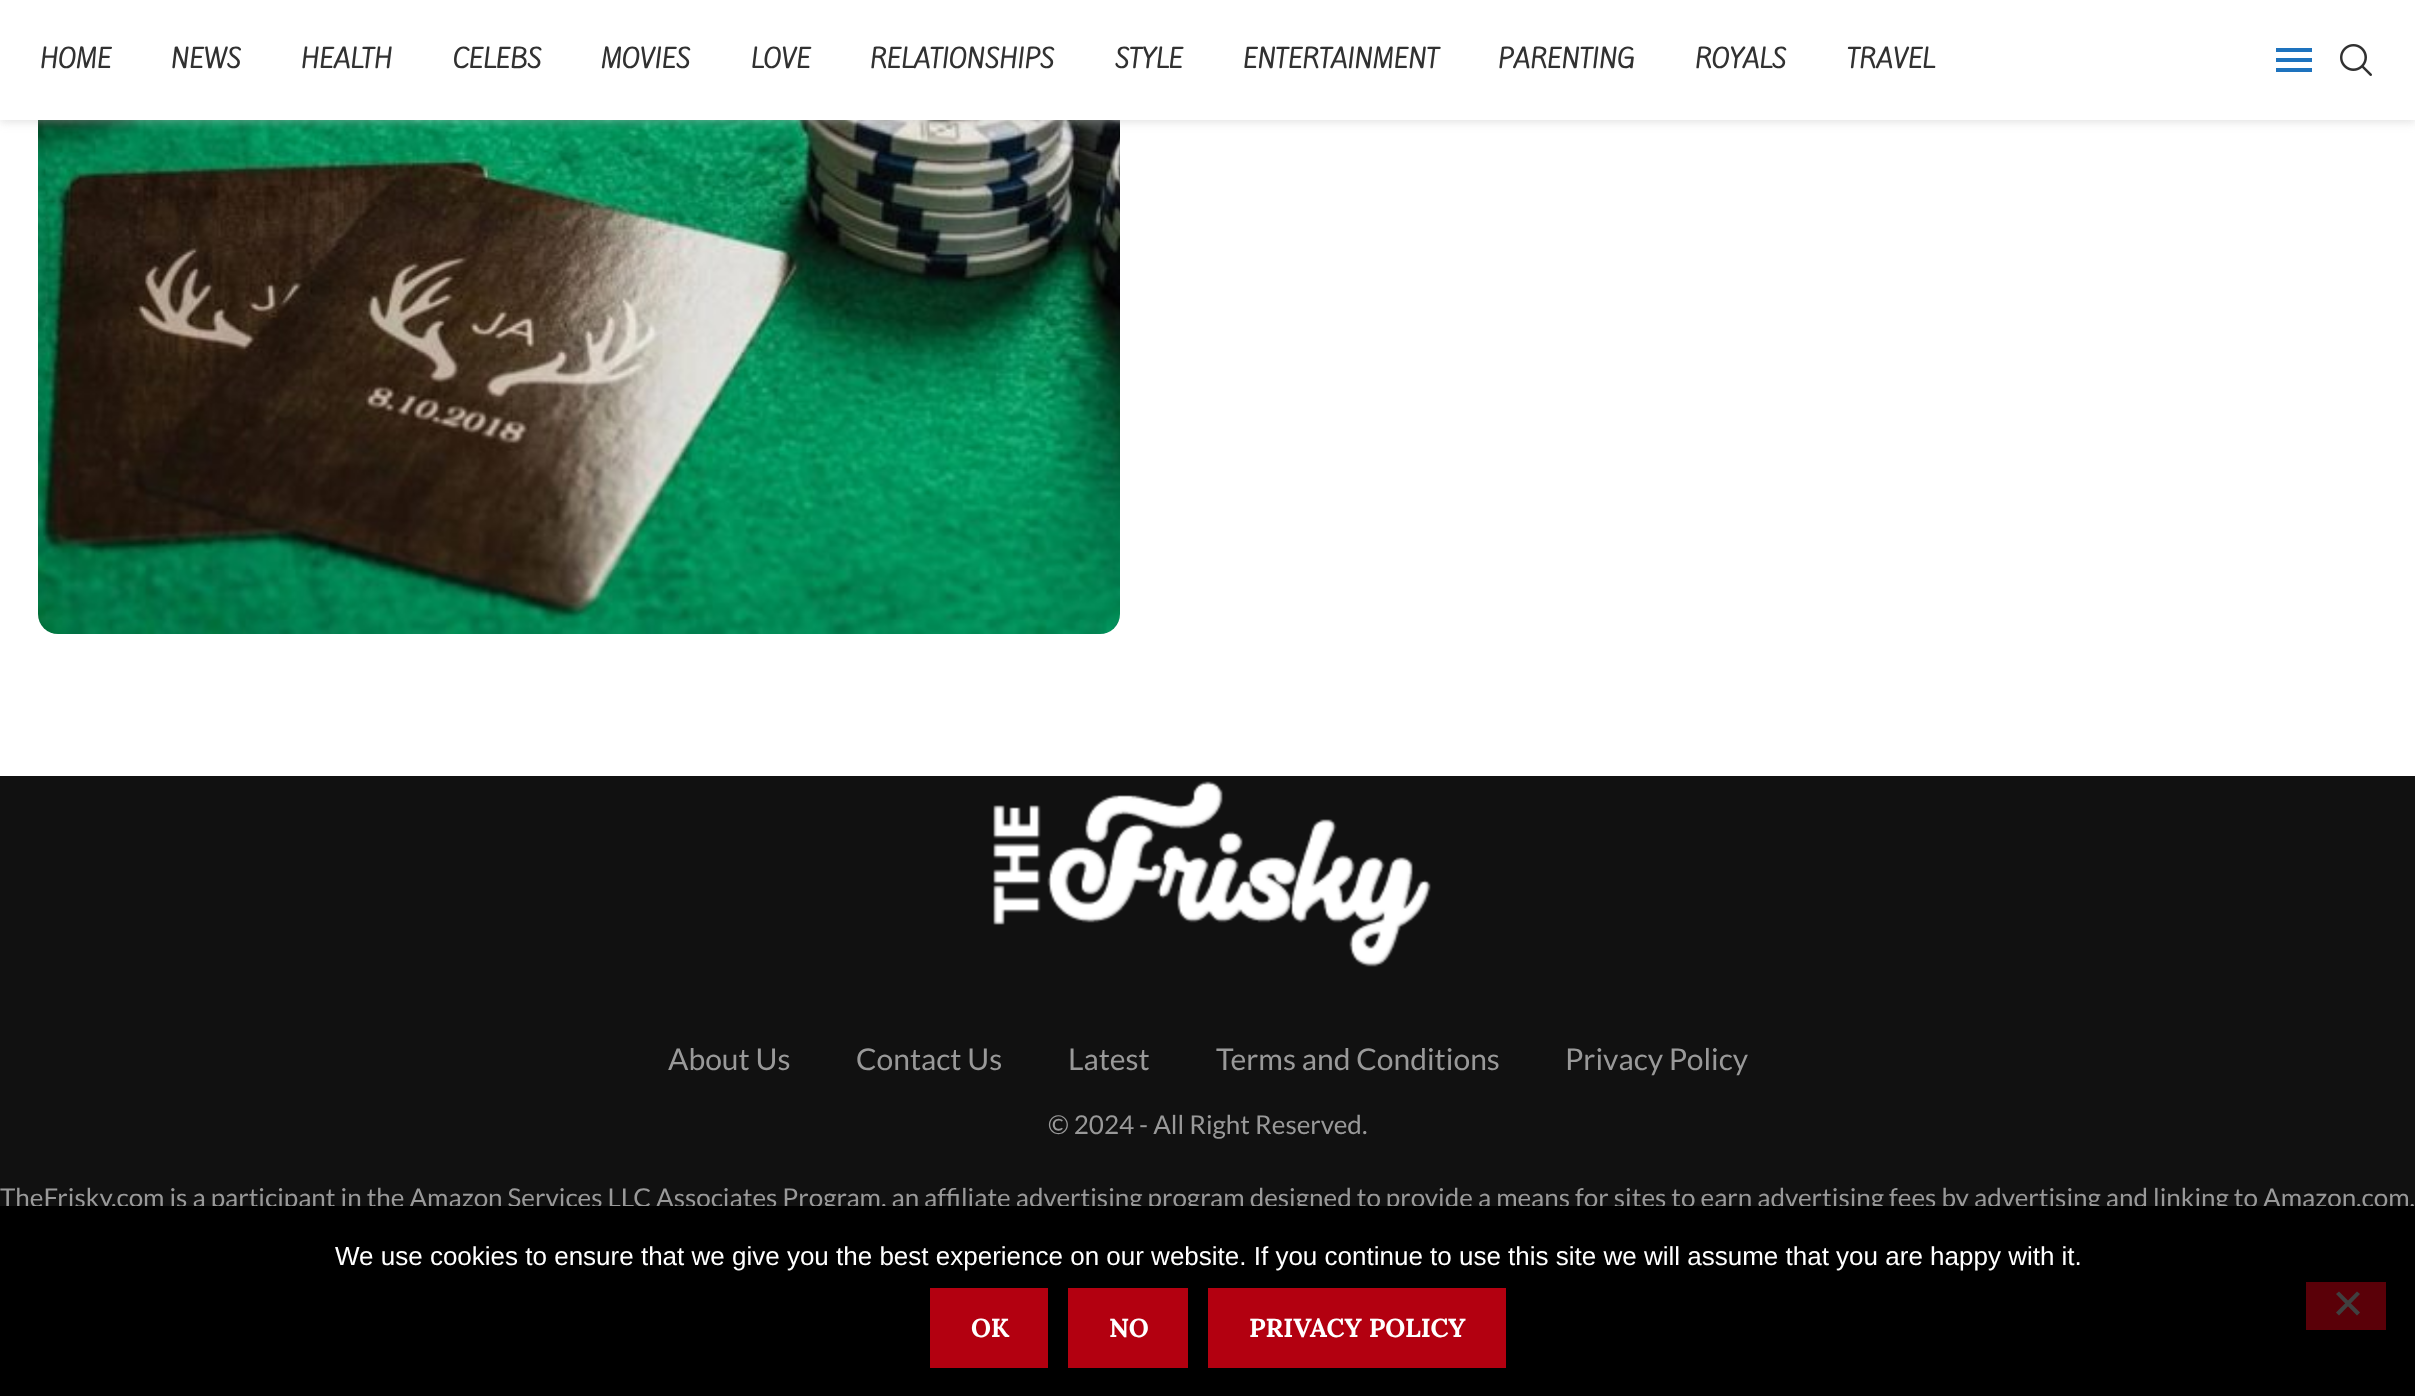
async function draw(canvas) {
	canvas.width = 2415;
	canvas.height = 1398;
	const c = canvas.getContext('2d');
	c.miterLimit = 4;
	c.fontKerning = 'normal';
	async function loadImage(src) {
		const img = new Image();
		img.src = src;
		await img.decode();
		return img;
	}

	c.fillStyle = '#fff';
	c.fillRect(0, 0, 2415, 1398);
	c.drawImage(await loadImage('img2.png'), 38, 120, 1082, 514);
	c.fillStyle = '#bebebe75';
	c.filter = 'blur(5px)';
	c.beginPath();
	c.rect(0, 2, 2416, 120);
	c.fill();
	c.filter = 'none';
	c.fillStyle = '#fff';
	c.fillRect(0, 0, 2415, 120);
	c.font = 'bold 24px Kite One';
	c.fillStyle = '#313131';
	for (const [text, x, y] of [
		['HOME', 40, 68],
		['NEWS', 171, 68],
		['HEALTH', 301, 68],
		['CELEBS', 453, 68],
		['MOVIES', 601, 68],
		['LOVE', 751, 68],
		['RELATIONSHIPS', 870, 68],
		['STYLE', 1115, 68],
		['ENTERTAINMENT', 1243, 68],
		['PARENTING', 1498, 68],
		['ROYALS', 1695, 68],
		['TRAVEL', 1847, 68],
	]) {
		c.fillText(text, x, y);
	}
	for (const [x, y, w, h, color] of [
		[2276, 48, 36, 4, '#1e73be'],
		[2276, 68, 36, 4, '#1e73be'],
		[2276, 58, 36, 4, '#1e73be'],
	]) {
		c.fillStyle = color;
		c.fillRect(x, y, w, h);
	}
	c.drawImage(await loadImage('img1.png'), 2340, 44, 32, 32);
	c.fillStyle = '#111';
	c.fillRect(0, 776, 2415, 430);
	c.drawImage(await loadImage('img3.png'), 993, 781, 438, 186);
	c.font = '30px Lato';
	c.fillStyle = '#999';
	for (const [text, x, y] of [
		['About Us', 668, 1070],
		['Contact Us', 856, 1070],
		['Latest', 1068, 1070],
		['Terms and Conditions', 1216, 1070],
		['Privacy Policy', 1565, 1070],
	]) {
		c.fillText(text, x, y);
	}
	c.font = '26px Lato';
	c.fillText('© 2024 - All Right Reserved.', 1048, 1134);
	c.fillText('TheFrisky.com is a participant in the Amazon Services LLC Associates Program, an affiliate advertising program designed to provide a means for sites to earn advertising fees by advertising and linking to Amazon.com.', 0, 1207);
	c.fillStyle = '#000';
	c.fillRect(0, 1206, 2415, 190);
	c.font = '26px Liberation Sans';
	c.fillStyle = '#fff';
	c.fillText('We use cookies to ensure that we give you the best experience on our website. If you continue to use this site we will assume that you are happy with it.', 335, 1265);
	c.fillStyle = '#b30010';
	c.fillRect(930, 1288, 118, 80);
	c.font = 'bold 26px Lora';
	c.fillStyle = '#fff';
	c.fillText('OK', 971, 1337);
	c.fillStyle = '#b30010';
	c.fillRect(1068, 1288, 120, 80);
	c.fillStyle = '#fff';
	c.fillText('NO', 1109, 1337);
	c.fillStyle = '#b30010';
	c.fillRect(1208, 1288, 298, 80);
	c.fillStyle = '#fff';
	c.fillText('PRIVACY POLICY', 1249, 1337);
	c.fillStyle = '#5a0008';
	c.fillRect(2306, 1282, 80, 48);
	c.fillStyle = '#404040';
	c.beginPath();
	c.moveTo(2357, 1291.5);
	c.lineTo(2360, 1294);
	c.lineTo(2339, 1315.5);
	c.lineTo(2336, 1312.5);
	c.closePath();
	c.fill();
	c.beginPath();
	c.moveTo(2336, 1294);
	c.lineTo(2339, 1291.5);
	c.lineTo(2360, 1312.5);
	c.lineTo(2357, 1315.5);
	c.closePath();
	c.fill();
}

draw(document.querySelector('canvas'));
